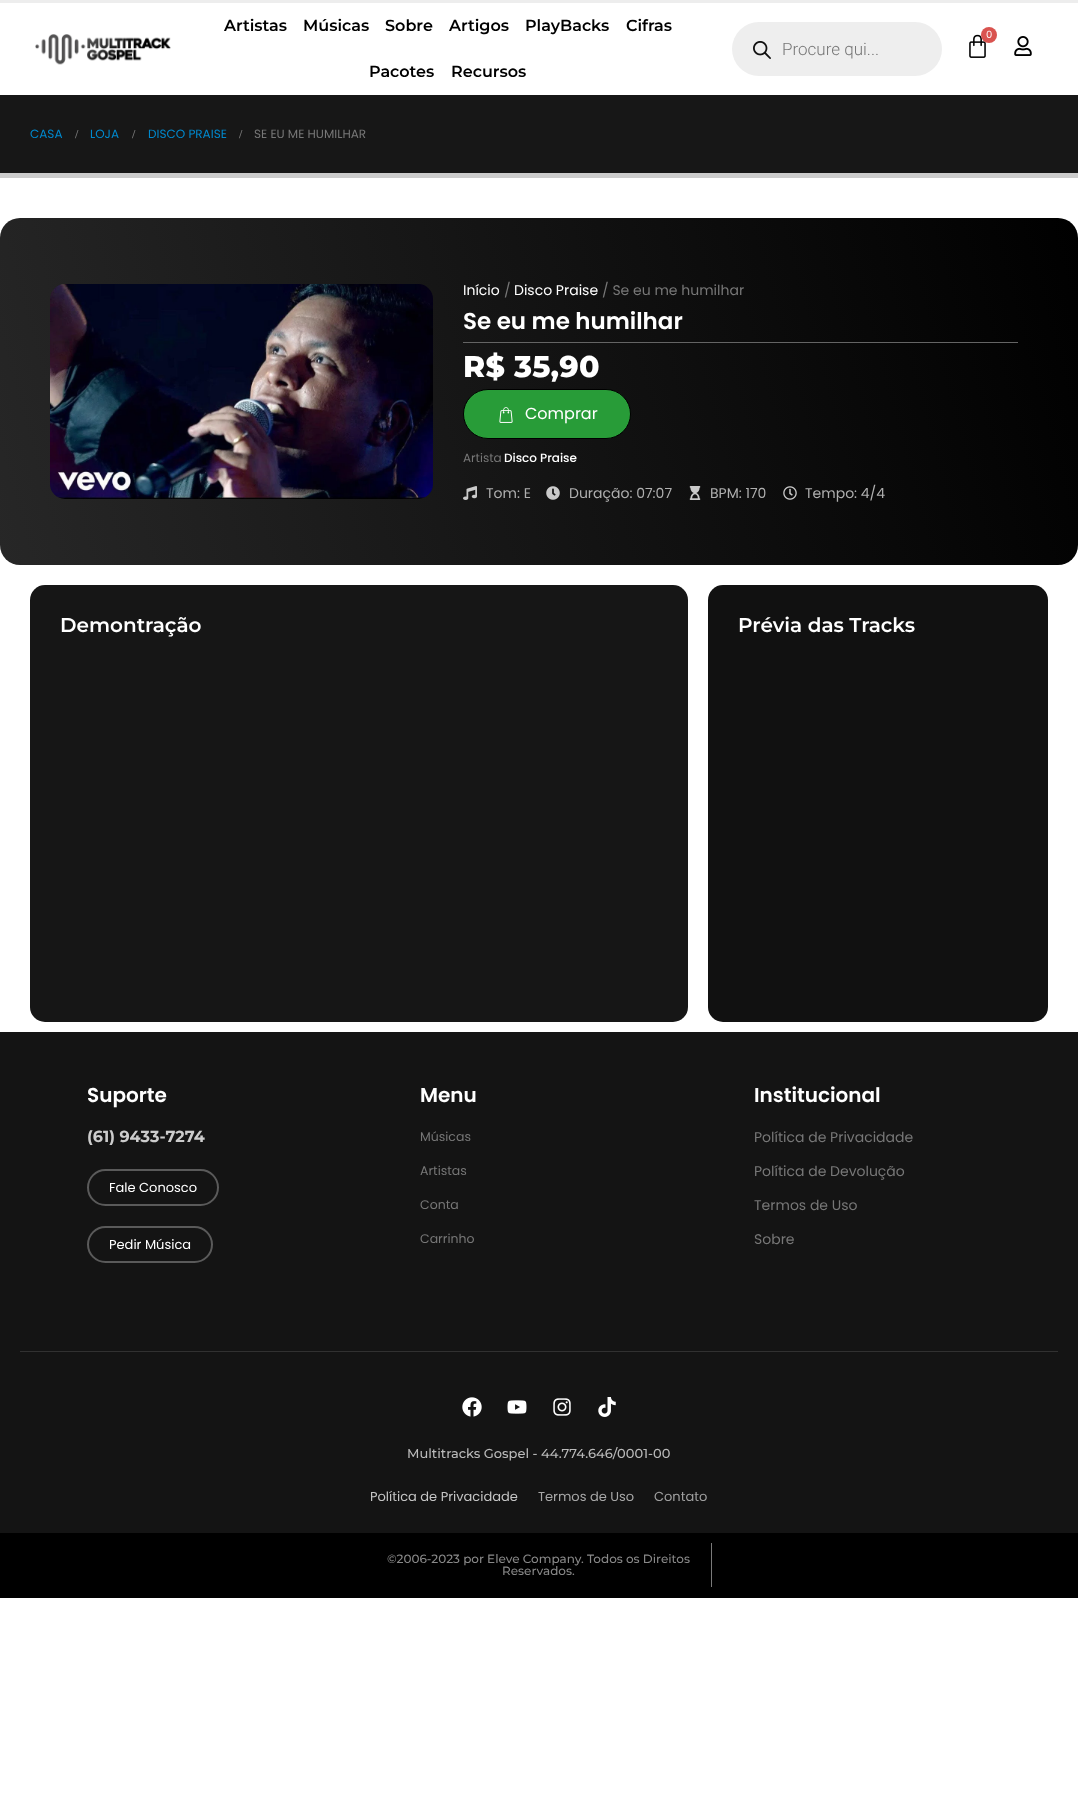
async function draw(canvas) {
	canvas.width = 1078;
	canvas.height = 1800;
	const c = canvas.getContext('2d');
	c.miterLimit = 4;
	c.fontKerning = 'normal';
	async function loadImage(src) {
		const img = new Image();
		img.src = src;
		await img.decode();
		return img;
	}
	let gradient;

	c.fillStyle = '#fff';
	c.fillRect(0, 0, 1078, 1800);
	c.fillStyle = '#ededed';
	c.fillRect(0, 0, 1078, 3);
	c.drawImage(await loadImage('img1.png'), 35, 34, 136, 31);
	c.font = '600 16px Montserrat';
	c.fillStyle = '#000';
	for (const [text, x, y] of [
		['Artistas', 224, 31],
		['Músicas', 303, 31],
		['Sobre', 385, 31],
		['Artigos', 449, 31],
		['PlayBacks', 525, 31],
		['Cifras', 626, 31],
		['Pacotes', 369, 77],
		['Recursos', 451, 77],
	]) {
		c.fillText(text, x, y);
	}
	c.fillStyle = '#eee';
	c.beginPath();
	c.roundRect(732, 22, 210, 54, 27);
	c.fill();
	c.drawImage(await loadImage('img2.png'), 753, 41, 18, 18);
	c.font = '300 17px Roboto';
	c.fillStyle = '#777';
	c.fillText('Procure qui...', 782, 55);
	c.drawImage(await loadImage('img3.png'), 969, 34, 17, 24);
	c.fillStyle = '#d9534f';
	c.beginPath();
	c.arc(989, 35, 8, 0, 2 * Math.PI);
	c.fill();
	c.font = '10px Poppins';
	c.fillStyle = '#fff';
	c.fillText('0', 986, 38);
	c.drawImage(await loadImage('img4.png'), 1014, 36, 18, 20);
	c.fillStyle = '#171717';
	c.fillRect(0, 95, 1078, 78);
	c.fillStyle = '#ccc';
	c.fillRect(0, 173, 1078, 5);
	c.font = '12px Poppins';
	c.fillStyle = '#08c';
	c.fillText('CASA', 30, 138);
	c.font = 'bold 12px Liberation Serif';
	c.fillStyle = '#777';
	c.fillText('/', 75, 138);
	c.font = '12px Poppins';
	c.fillStyle = '#08c';
	c.fillText('LOJA', 90, 138);
	c.font = 'bold 12px Liberation Serif';
	c.fillStyle = '#777';
	c.fillText('/', 132, 138);
	c.font = '12px Poppins';
	c.fillStyle = '#08c';
	c.fillText('DISCO PRAISE', 148, 138);
	c.font = 'bold 12px Liberation Serif';
	c.fillStyle = '#777';
	c.fillText('/', 239, 138);
	c.font = '12px Poppins';
	c.fillText('SE EU ME HUMILHAR', 254, 138);
	gradient = c.createLinearGradient(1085, 245, -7.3, 538);
	gradient.addColorStop(0, '#000');
	gradient.addColorStop(1, '#272727');
	c.fillStyle = gradient;
	c.beginPath();
	c.roundRect(0, 218, 1078, 347, 20);
	c.fill();
	c.drawImage(await loadImage('img5.png'), 50, 284, 383, 215);
	c.font = '14px Poppins';
	c.fillStyle = '#fff';
	c.fillText('Início', 463, 295);
	c.fillStyle = '#777';
	c.fillText('/', 504, 295);
	c.fillStyle = '#fff';
	c.fillText('Disco Praise', 514, 295);
	c.fillStyle = '#777';
	c.fillText('/ Se eu me humilhar', 602, 295);
	c.font = '600 23px Poppins';
	c.fillStyle = '#fff';
	c.fillText('Se eu me humilhar', 463, 329);
	c.fillStyle = '#646464';
	c.fillRect(463, 342, 555, 1);
	c.letterSpacing = '0.25px';
	c.font = '800 30px Montserrat';
	c.fillStyle = '#fff';
	c.fillText('R$ 35,90', 463, 377);
	c.fillStyle = '#289c38';
	c.beginPath();
	c.roundRect(463.5, 389.5, 167, 49, 24.5);
	c.fill();
	c.strokeStyle = '#000';
	c.stroke();
	c.drawImage(await loadImage('img6.png'), 499, 407, 14, 16);
	c.letterSpacing = '0px';
	c.font = '16px Poppins';
	c.fillStyle = '#fff';
	c.fillText('Comprar', 525, 419);
	c.font = '12px Poppins';
	c.fillStyle = '#777';
	c.fillText('Artista', 463, 462);
	c.font = '500 12px Poppins';
	c.fillStyle = '#fff';
	c.fillText('Disco Praise', 504, 462);
	c.drawImage(await loadImage('img7.png'), 463, 486, 14, 14);
	c.font = '14px Poppins';
	c.fillStyle = '#afafaf';
	c.fillText('Tom: E', 486, 498);
	c.drawImage(await loadImage('img8.png'), 546, 486, 14, 14);
	c.fillText('Duração: 07:07', 569, 498);
	c.drawImage(await loadImage('img9.png'), 689, 486, 12, 14);
	c.fillText('BPM: 170', 710, 498);
	c.drawImage(await loadImage('img10.png'), 783, 486, 14, 14);
	c.fillText('Tempo: 4/4', 805, 498);
	c.fillStyle = '#161616';
	c.beginPath();
	c.roundRect(30, 585, 658, 437, 15);
	c.fill();
	c.font = '600 20px Montserrat';
	c.fillStyle = '#fff';
	c.fillText('Demontração', 60, 632);
	c.fillStyle = '#111';
	c.beginPath();
	c.roundRect(708, 585, 340, 437, 15);
	c.fill();
	c.fillStyle = '#fff';
	c.fillText('Prévia das Tracks', 738, 632);
	c.fillStyle = '#141414';
	c.fillRect(0, 1032, 1078, 501);
	c.font = '600 20px Poppins';
	c.fillStyle = '#fff';
	c.fillText('Suporte', 87, 1102);
	c.font = 'bold 16px Montserrat';
	c.fillStyle = '#ccc';
	c.fillText('(61) 9433-7274', 87, 1142);
	c.beginPath();
	c.roundRect(88, 1170, 130, 35, 17.5);
	c.strokeStyle = '#5a5a5a';
	c.lineWidth = 2;
	c.stroke();
	c.font = '13px Poppins';
	c.fillStyle = '#fff';
	c.fillText('Fale Conosco', 109, 1192);
	c.beginPath();
	c.roundRect(88, 1227, 124, 35, 17.5);
	c.stroke();
	c.fillText('Pedir Música', 109, 1249);
	c.font = '600 20px Poppins';
	c.fillText('Menu', 420, 1102);
	c.font = '12.5px Poppins';
	c.fillStyle = '#777';
	for (const [text, x, y] of [
		['Músicas', 420, 1141],
		['Artistas', 420, 1175],
		['Conta', 420, 1209],
		['Carrinho', 420, 1243],
	]) {
		c.fillText(text, x, y);
	}
	c.font = '600 20px Poppins';
	c.fillStyle = '#fff';
	c.fillText('Institucional', 754, 1102);
	c.font = '14px Poppins';
	c.fillStyle = '#777';
	for (const [text, x, y] of [
		['Política de Privacidade', 754, 1142],
		['Política de Devolução', 754, 1176],
		['Termos de Uso', 754, 1210],
		['Sobre', 754, 1244],
	]) {
		c.fillText(text, x, y);
	}
	c.fillStyle = '#313131';
	c.fillRect(20, 1351, 1038, 1);
	c.drawImage(await loadImage('img11.png'), 462, 1397, 20, 20);
	c.drawImage(await loadImage('img12.png'), 507, 1400, 20, 14);
	c.drawImage(await loadImage('img13.png'), 553, 1398, 18, 18);
	c.drawImage(await loadImage('img14.png'), 598, 1397, 18, 20);
	c.font = '500 13px Montserrat';
	c.fillStyle = '#bababa';
	c.fillText('Multitracks Gospel - 44.774.646/0001-00', 407, 1458);
	c.font = '13px Poppins';
	c.fillStyle = '#c5c5c5';
	c.fillText('Política de Privacidade', 370, 1501);
	c.fillStyle = '#a8a8a8';
	c.fillText('Termos de Uso', 538, 1501);
	c.fillStyle = '#a0a0a0';
	c.fillText('Contato', 654, 1501);
	c.fillStyle = '#000';
	c.fillRect(0, 1533, 1078, 65);
	c.fillStyle = '#7a7a7a';
	c.fillRect(711, 1543, 1, 44);
	c.font = '500 12px Montserrat';
	c.fillStyle = '#888';
	c.fillText('©2006-2023 por Eleve Company. Todos os Direitos', 387, 1563);
	c.fillText('Reservados.', 502, 1575);
}

draw(document.querySelector('canvas'));
